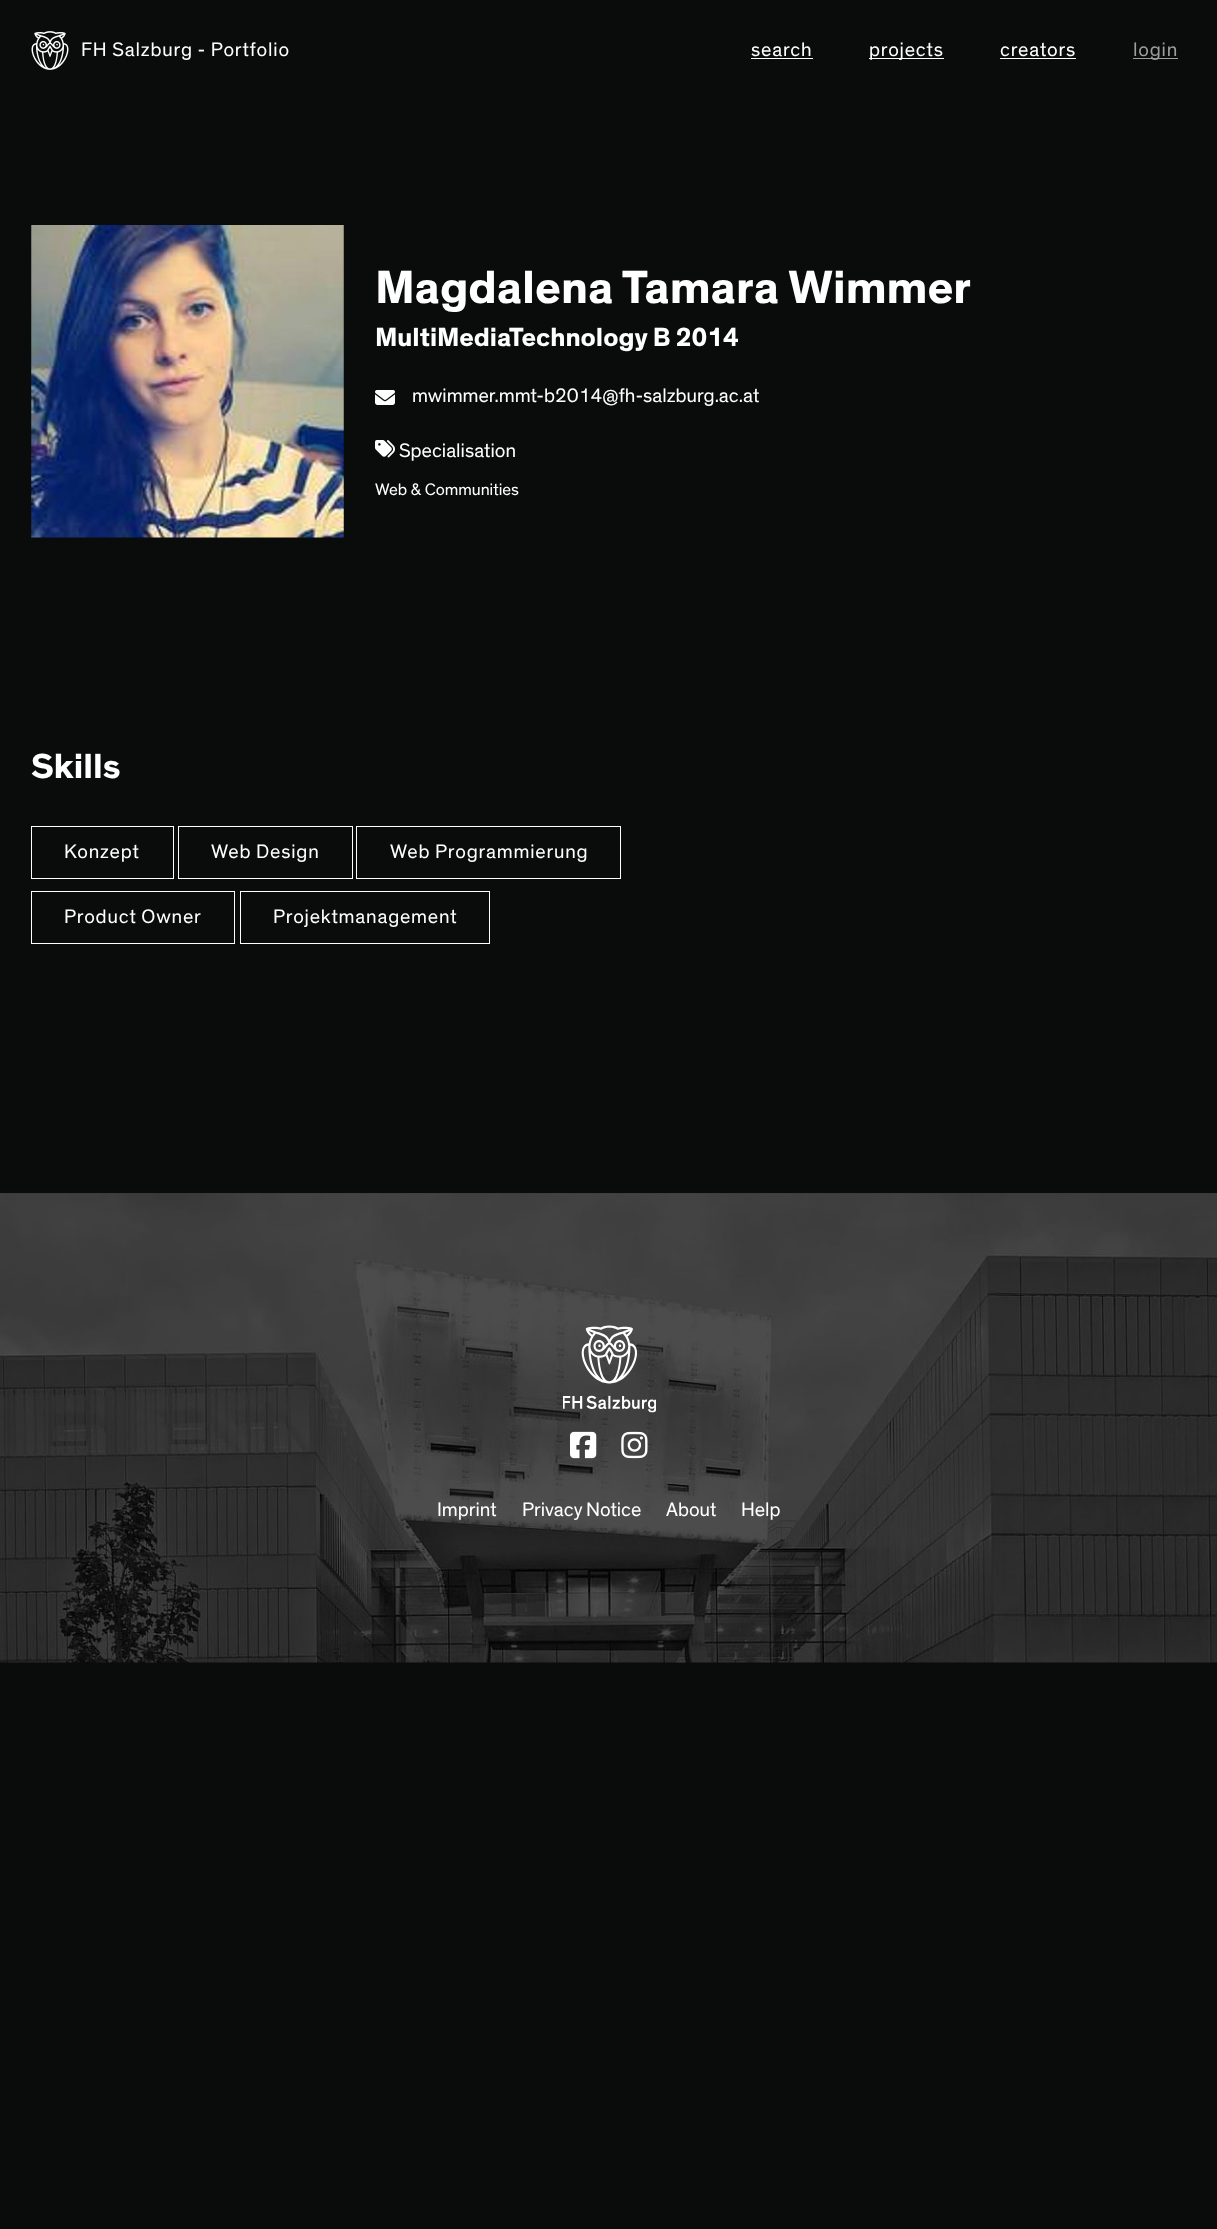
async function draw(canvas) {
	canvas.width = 1217;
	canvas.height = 2229;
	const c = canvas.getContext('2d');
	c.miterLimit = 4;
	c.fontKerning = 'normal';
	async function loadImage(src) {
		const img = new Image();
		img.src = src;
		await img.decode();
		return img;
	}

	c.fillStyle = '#0a0b0b';
	c.fillRect(0, 0, 1217, 2229);
	c.drawImage(await loadImage('img1.png'), 31, 31, 38, 39);
	c.letterSpacing = '0.8px';
	c.font = '20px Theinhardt';
	c.fillStyle = '#fff';
	c.fillText('FH Salzburg - Portfolio', 81, 56);
	c.fillText('search', 751, 56);
	c.fillRect(751, 58, 62, 1);
	c.fillRect(869, 58, 75, 1);
	c.fillText('projects', 869, 56);
	c.fillText('creators', 1000, 56);
	c.fillRect(1000, 58, 76, 1);
	c.fillStyle = '#9d9d9d';
	c.fillRect(1133, 58, 45, 1);
	c.fillText('login', 1133, 56);
	c.drawImage(await loadImage('img2.png'), 31, 225, 313, 313);
	c.letterSpacing = '0px';
	c.font = 'bold 47.4px Theinhardt';
	c.fillStyle = '#fff';
	c.fillText('Magdalena Tamara Wimmer', 375, 303);
	c.font = 'bold 26.7px Theinhardt';
	c.fillText('MultiMediaTechnology B 2014', 375, 346);
	c.drawImage(await loadImage('img3.png'), 375, 390, 20, 15);
	c.font = '20px Theinhardt';
	c.fillText('mwimmer.mmt-b2014@fh-salzburg.ac.at', 412, 402);
	c.drawImage(await loadImage('img4.png'), 375, 440, 20, 18);
	c.fillText('Specialisation', 399, 457);
	c.font = '17px Theinhardt';
	c.fillText('Web & Communities', 375, 495);
	c.font = 'bold 35.5px Theinhardt';
	c.fillText('Skills', 31, 778);
	c.strokeStyle = '#fff';
	c.strokeRect(31.5, 826.5, 142, 52);
	c.letterSpacing = '0.8px';
	c.font = '20px Theinhardt';
	c.fillText('Konzept', 64, 858);
	c.strokeRect(178.5, 826.5, 174, 52);
	c.fillText('Web Design', 211, 858);
	c.strokeRect(356.5, 826.5, 264, 52);
	c.fillText('Web Programmierung', 390, 858);
	c.strokeRect(31.5, 891.5, 203, 52);
	c.fillText('Product Owner', 64, 923);
	c.strokeRect(240.5, 891.5, 249, 52);
	c.fillText('Projektmanagement', 273, 923);
	c.drawImage(await loadImage('img5.png'), 0, 1193, 1217, 470);
	c.drawImage(await loadImage('img6.png'), 563, 1325, 93, 88);
	c.drawImage(await loadImage('img7.png'), 570, 1431, 27, 28);
	c.drawImage(await loadImage('img8.png'), 621, 1431, 27, 28);
	c.letterSpacing = '0px';
	for (const [text, x, y] of [
		['Imprint', 437, 1516],
		['Privacy Notice', 522, 1516],
		['About', 666, 1516],
		['Help', 741, 1516],
	]) {
		c.fillText(text, x, y);
	}
}

draw(document.querySelector('canvas'));
